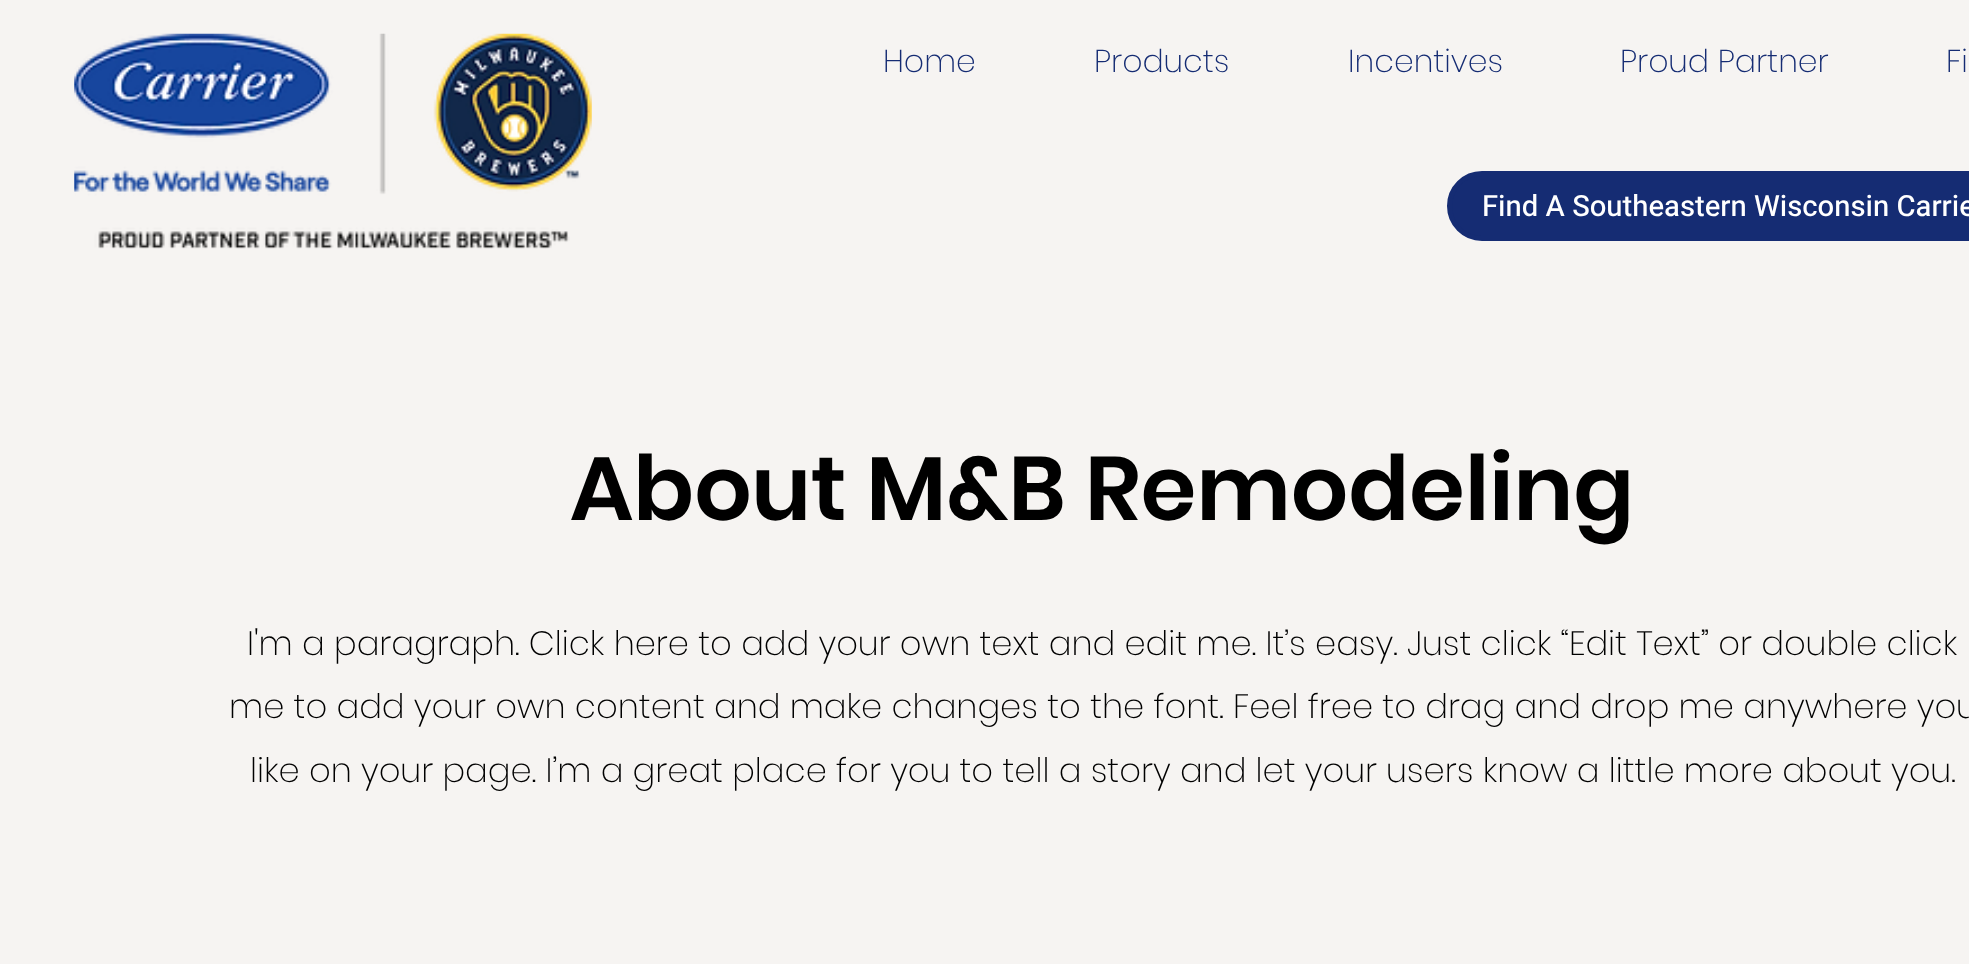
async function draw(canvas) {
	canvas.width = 1969;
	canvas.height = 964;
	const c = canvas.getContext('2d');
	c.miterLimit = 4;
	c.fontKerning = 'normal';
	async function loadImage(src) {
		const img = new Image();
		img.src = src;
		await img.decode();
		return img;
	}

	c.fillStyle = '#f6f4f2';
	c.fillRect(0, 0, 1969, 964);
	c.drawImage(await loadImage('img1.png'), 74, 33, 518, 216);
	c.font = '200 31.5px Poppins';
	c.fillStyle = '#152c73';
	for (const [text, x, y] of [
		['Home', 883, 72],
		['Products', 1094, 72],
		['Incentives', 1348, 72],
		['Proud Partner', 1620, 72],
		['Fi', 1946, 72],
	]) {
		c.fillText(text, x, y);
	}
	c.beginPath();
	c.roundRect(1449.5, 173.5, 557, 65, 32.5);
	c.fill();
	c.strokeStyle = '#152c73';
	c.lineWidth = 5;
	c.stroke();
	c.font = '500 29.25px Heebo';
	c.fillStyle = '#fff';
	c.fillText('Find A Southeastern Wisconsin Carrie', 1482, 216);
	c.font = '600 90px Poppins';
	c.fillStyle = '#000';
	c.fillText('About M&B Remodeling', 570, 520);
	c.font = '200 33.75px Poppins';
	for (const [text, x, y] of [
		['I\'m a paragraph. Click here to add your own text and edit me. It’s easy. Just click “Edit Text” or double click', 247, 655],
		['me to add your own content and make changes to the font. Feel free to drag and drop me anywhere you', 229, 718],
		['like on your page. I’m a great place for you to tell a story and let your users know a little more about you.', 250, 782],
	]) {
		c.fillText(text, x, y);
	}
}

draw(document.querySelector('canvas'));
